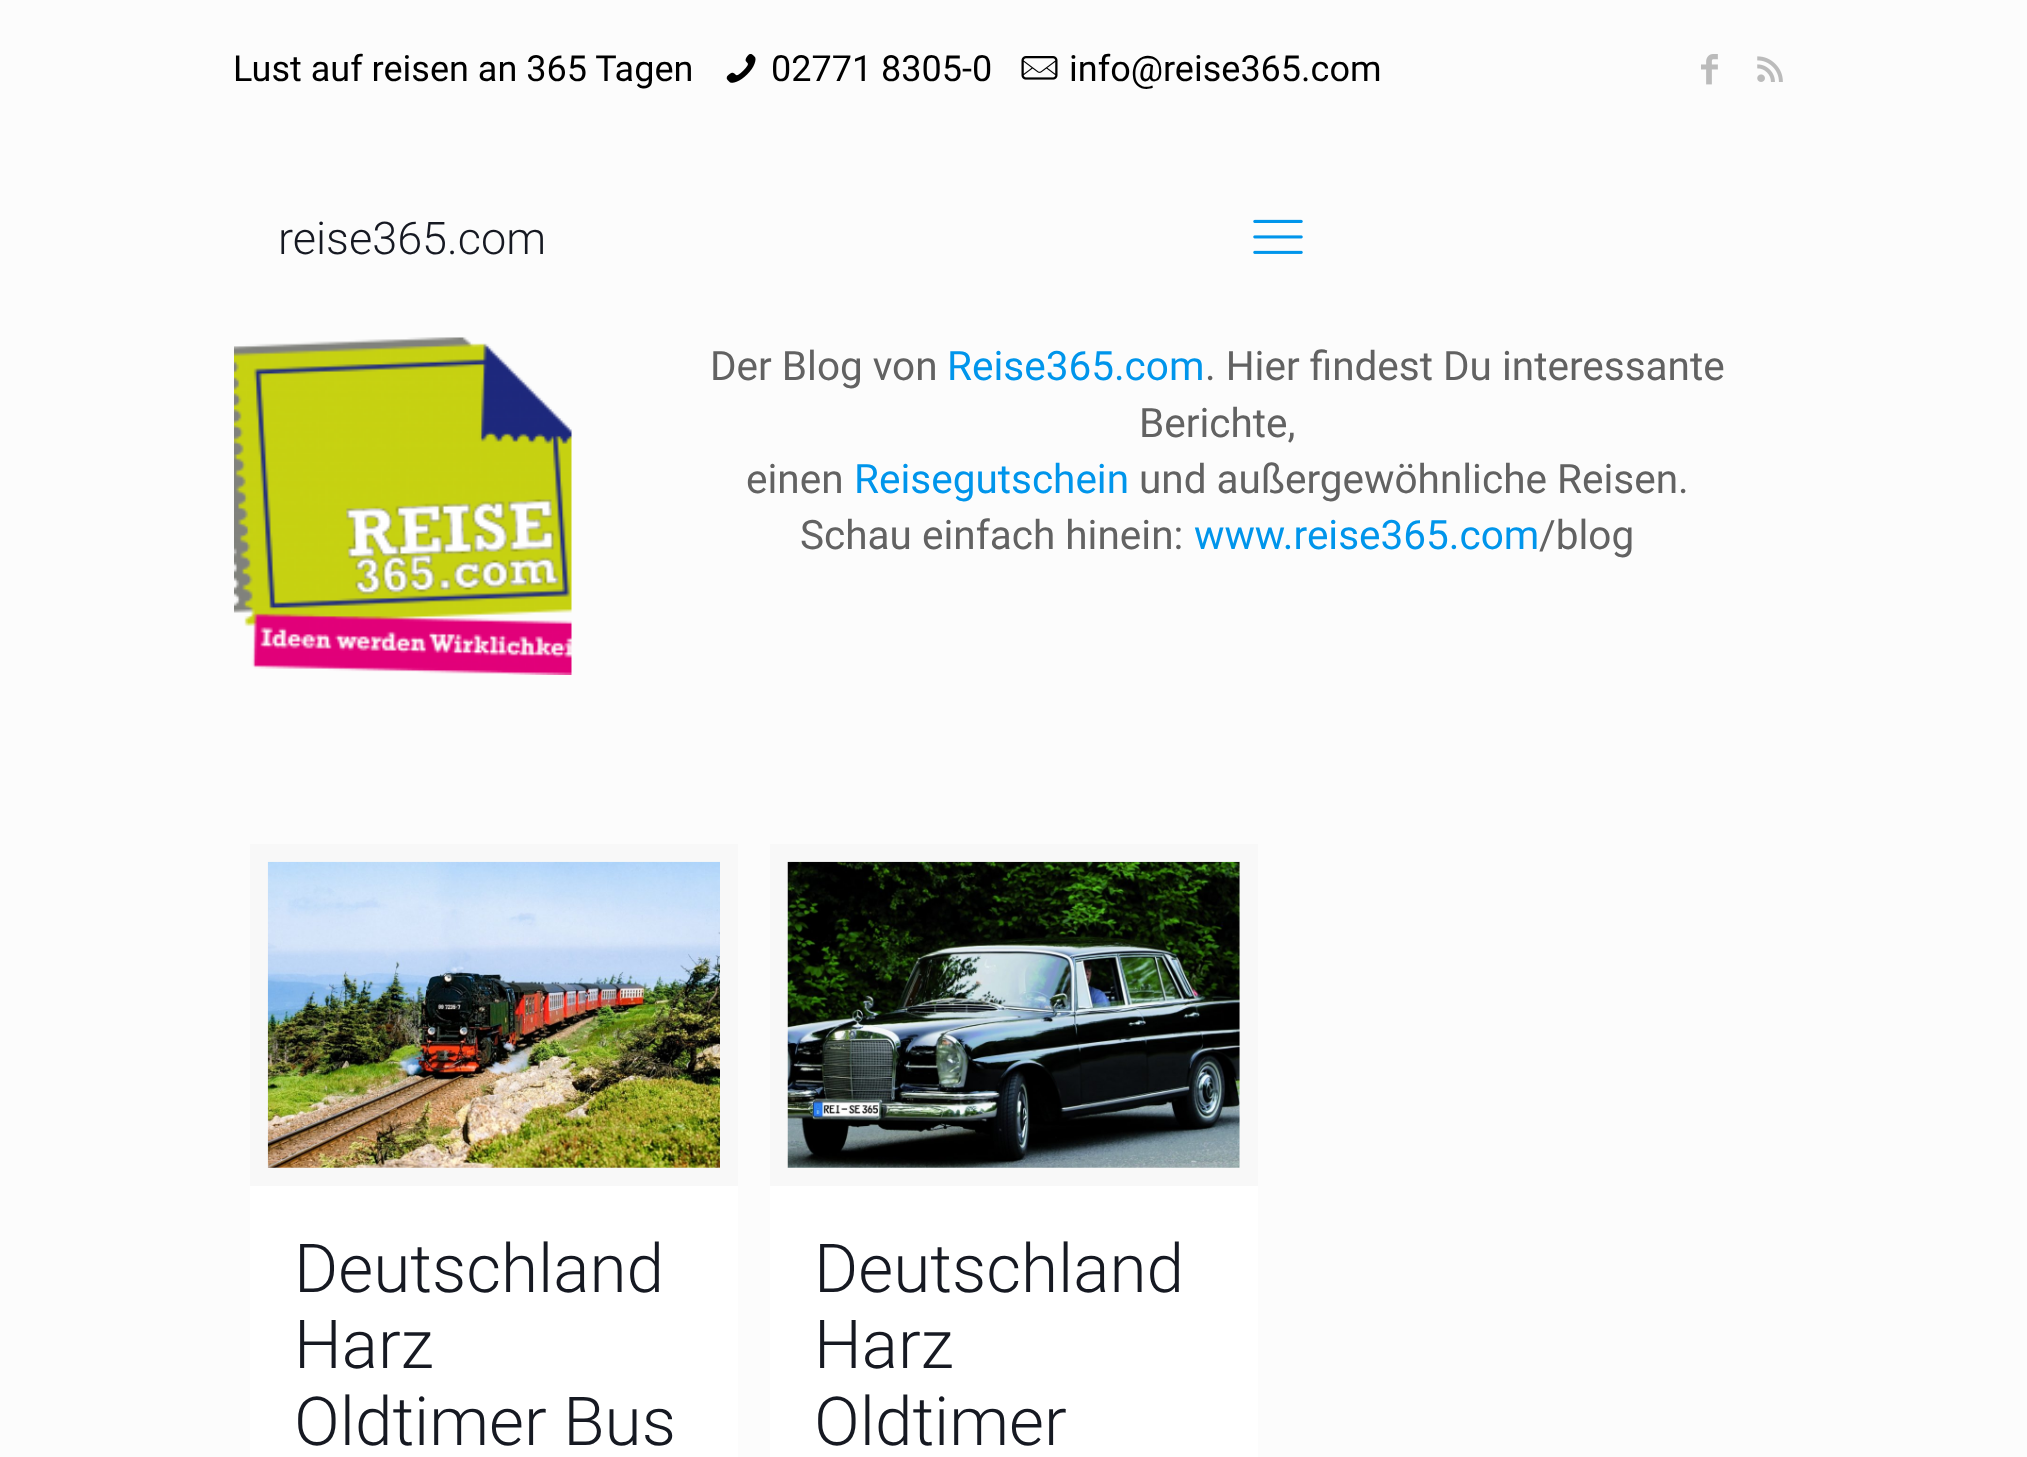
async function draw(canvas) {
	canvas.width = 2027;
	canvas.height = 1457;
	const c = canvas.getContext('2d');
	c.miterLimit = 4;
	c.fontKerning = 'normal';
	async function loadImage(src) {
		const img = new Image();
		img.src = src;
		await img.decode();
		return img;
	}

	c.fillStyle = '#fcfcfc';
	c.fillRect(0, 0, 2027, 1457);
	c.font = '36px Roboto';
	c.fillStyle = '#000';
	c.fillText('Lust auf reisen an 365 Tagen', 233, 81);
	c.drawImage(await loadImage('img1.png'), 726, 54, 30, 29);
	c.fillText('02771 8305-0', 771, 81);
	c.drawImage(await loadImage('img2.png'), 1021, 56, 37, 24);
	c.fillText('info@reise365.com', 1069, 81);
	c.drawImage(await loadImage('img3.png'), 1701, 54, 17, 31);
	c.drawImage(await loadImage('img4.png'), 1757, 56, 26, 26);
	c.font = '300 45px Roboto';
	c.fillStyle = '#161922';
	c.fillText('reise365.com', 278, 254);
	c.drawImage(await loadImage('img5.png'), 1253, 219, 50, 35);
	c.drawImage(await loadImage('img6.png'), 234, 337, 338, 338);
	c.font = '40.5px Roboto';
	c.fillStyle = '#626262';
	c.fillText('Der Blog von', 710, 380);
	c.fillStyle = '#0095eb';
	c.fillText('Reise365.com', 947, 380);
	c.fillStyle = '#626262';
	for (const [text, x, y] of [
		['. Hier findest Du interessante', 1205, 380],
		['Berichte,', 1139, 437],
		['einen', 746, 493],
	]) {
		c.fillText(text, x, y);
	}
	c.fillStyle = '#0095eb';
	c.fillText('Reisegutschein', 854, 493);
	c.fillStyle = '#626262';
	c.fillText('und außergewöhnliche Reisen.', 1139, 493);
	c.fillText('Schau einfach hinein:', 800, 549);
	c.fillStyle = '#0095eb';
	c.fillText('www.reise365.com', 1194, 549);
	c.fillStyle = '#626262';
	c.fillText('/blog', 1539, 549);
	c.fillStyle = '#fff';
	c.fillRect(250, 1167, 488, 290);
	c.strokeStyle = '#f8f8f8';
	c.lineWidth = 18;
	c.strokeRect(259, 853, 470, 324);
	c.drawImage(await loadImage('img7.png'), 267, 861, 453, 307);
	c.font = '300 67.5px Roboto';
	c.fillStyle = '#161922';
	for (const [text, x, y] of [
		['Deutschland', 294, 1292],
		['Harz', 294, 1368],
		['Oldtimer Bus', 294, 1445],
	]) {
		c.fillText(text, x, y);
	}
	c.fillStyle = '#fff';
	c.fillRect(770, 862, 488, 595);
	c.strokeRect(779, 853, 470, 324);
	c.drawImage(await loadImage('img8.png'), 787, 861, 453, 307);
	c.fillStyle = '#161922';
	for (const [text, x, y] of [
		['Deutschland', 814, 1292],
		['Harz', 814, 1368],
		['Oldtimer', 814, 1445],
	]) {
		c.fillText(text, x, y);
	}
}

draw(document.querySelector('canvas'));
